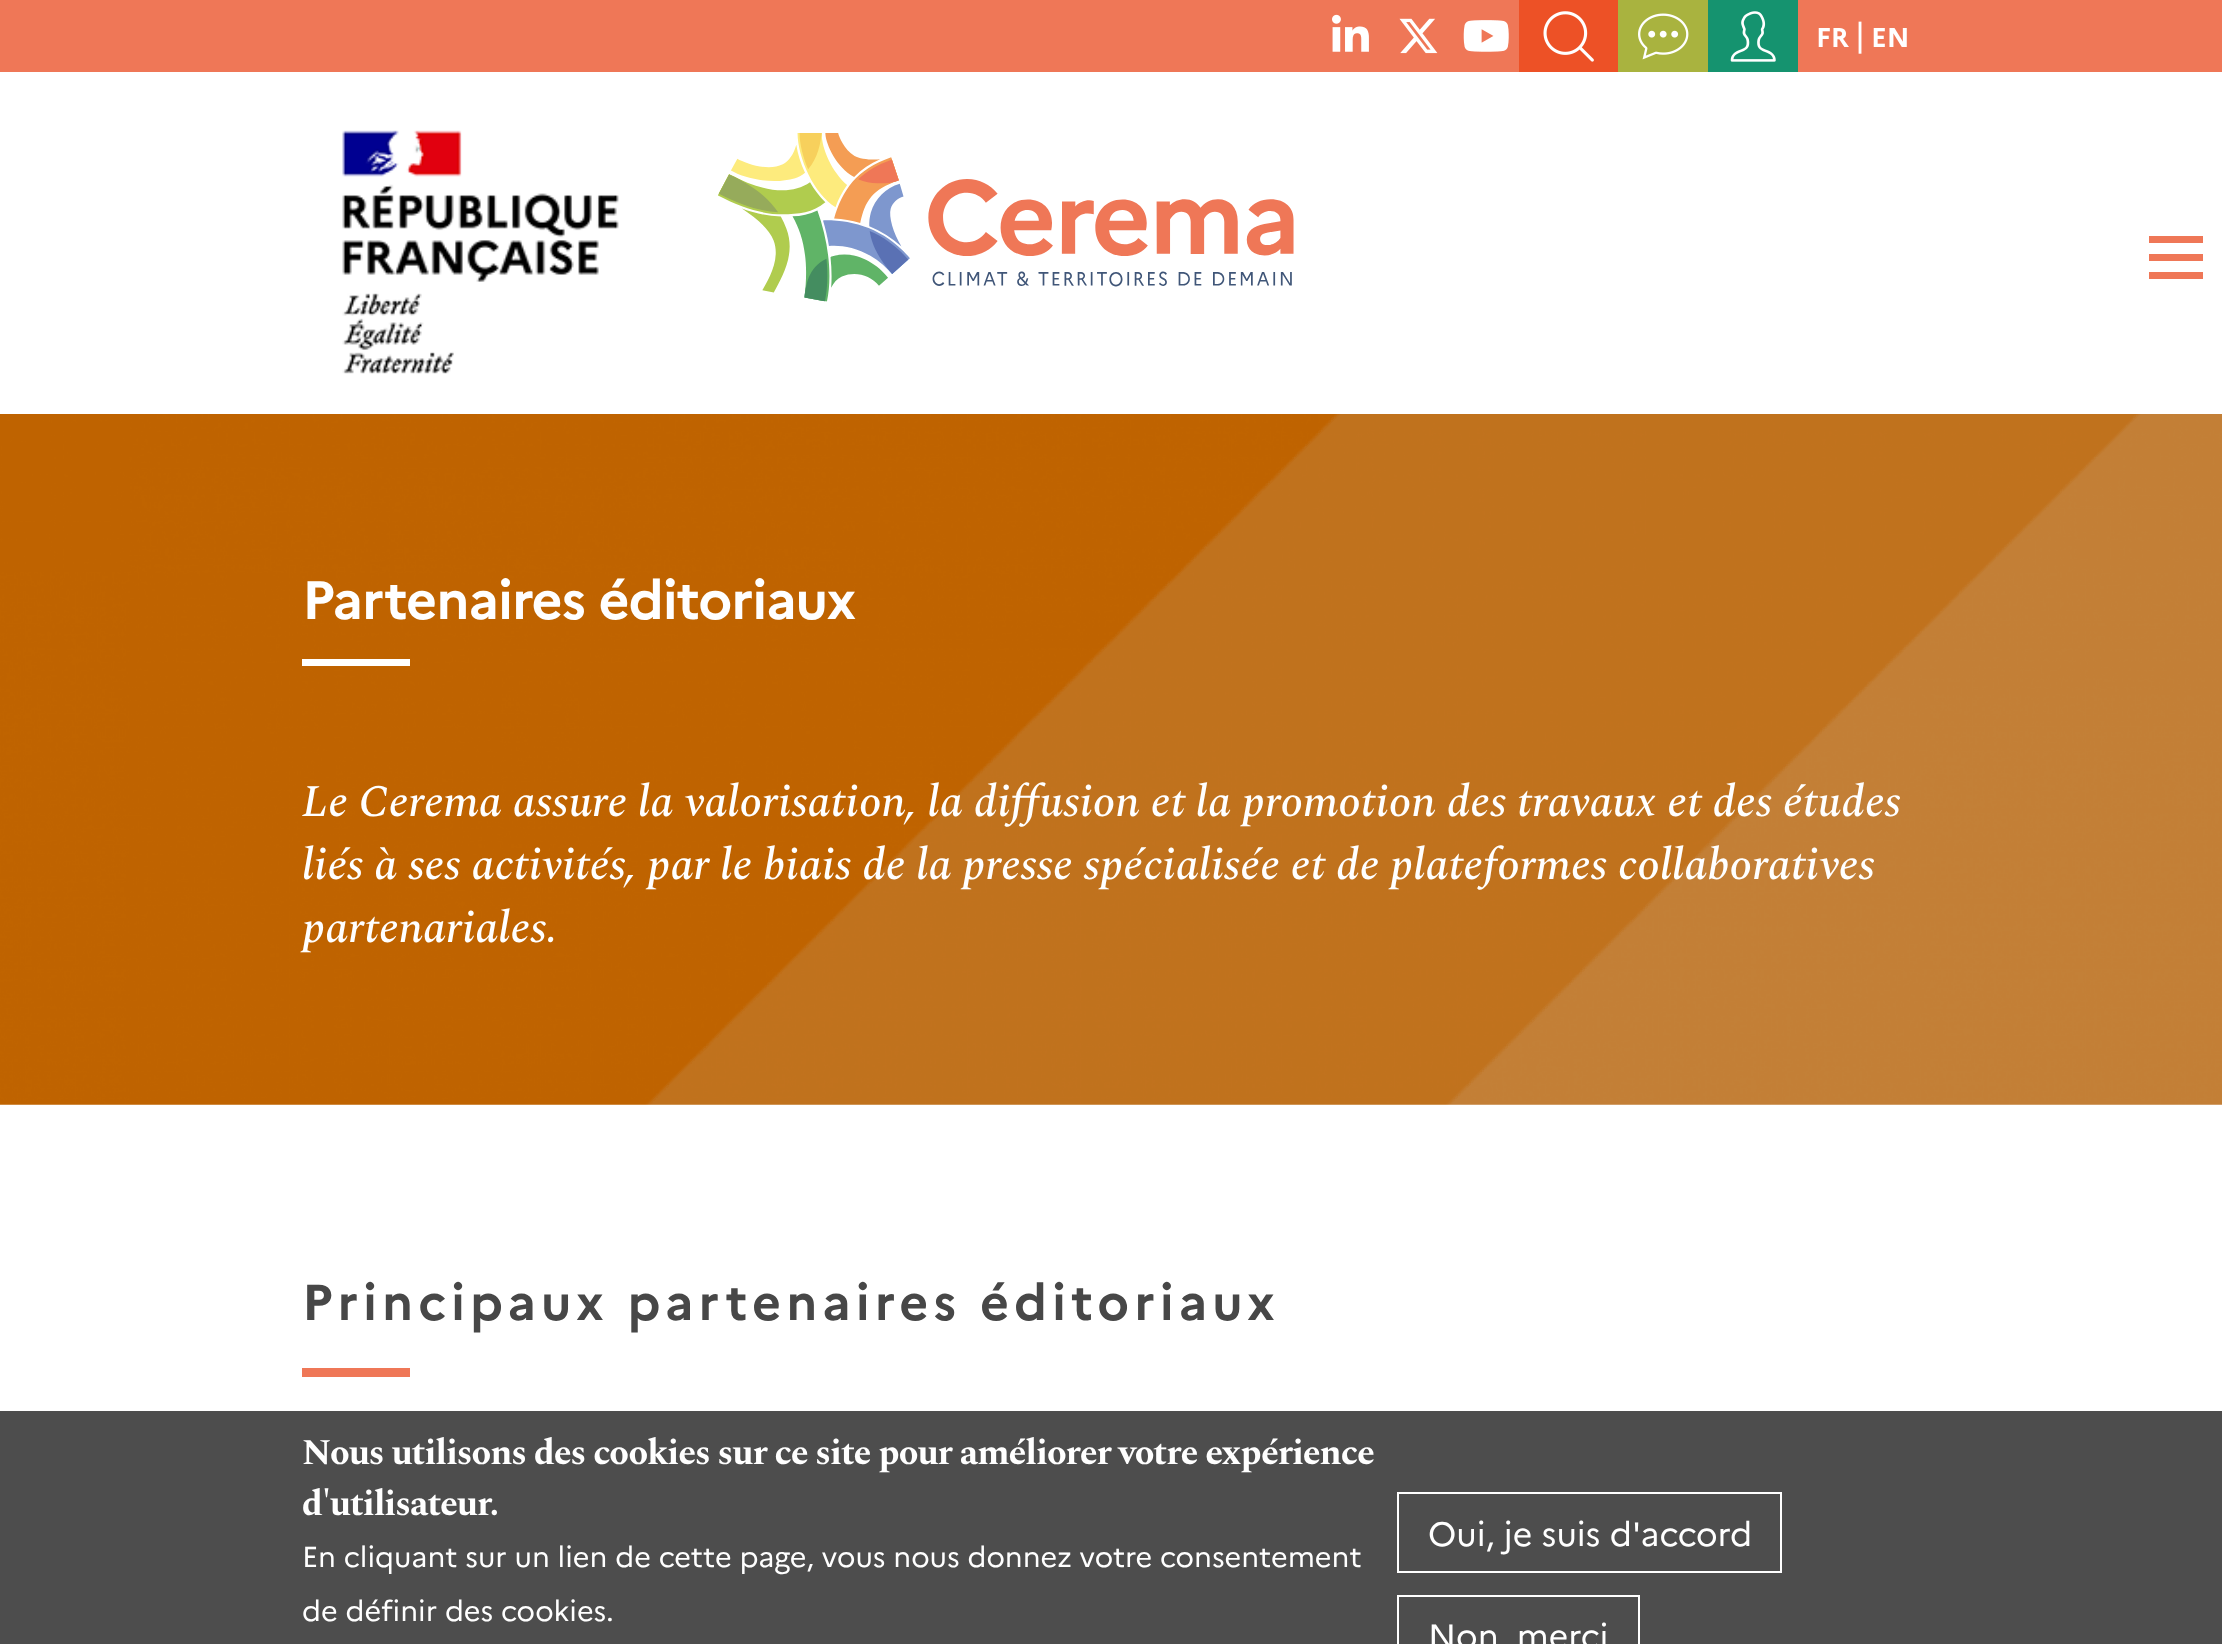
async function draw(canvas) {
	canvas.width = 2222;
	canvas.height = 1644;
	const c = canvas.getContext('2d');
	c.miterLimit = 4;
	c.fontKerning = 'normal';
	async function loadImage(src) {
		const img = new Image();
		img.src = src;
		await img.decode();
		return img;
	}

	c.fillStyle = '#fff';
	c.fillRect(0, 0, 2222, 1644);
	c.fillStyle = '#ef7757';
	c.fillRect(0, 0, 2222, 72);
	c.drawImage(await loadImage('img1.png'), 1332, 14, 37, 38);
	c.drawImage(await loadImage('img2.png'), 1399, 18, 39, 36);
	c.drawImage(await loadImage('img3.png'), 1463, 20, 46, 32);
	c.fillStyle = '#ed5126';
	c.fillRect(1519, 0, 99, 72);
	c.drawImage(await loadImage('img4.png'), 1543, 11, 51, 51);
	c.fillStyle = '#a9b33f';
	c.fillRect(1618, 0, 90, 72);
	c.drawImage(await loadImage('img5.png'), 1638, 13, 51, 47);
	c.fillStyle = '#15936f';
	c.fillRect(1708, 0, 90, 72);
	c.drawImage(await loadImage('img6.png'), 1730, 11, 46, 51);
	c.font = 'bold 27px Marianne';
	c.fillStyle = '#fff';
	c.fillText('FR', 1816, 47);
	c.font = '33.75px Marianne';
	c.fillText('|', 1854, 47);
	c.font = 'bold 27px Marianne';
	c.fillText('EN', 1871, 47);
	c.drawImage(await loadImage('img7.png'), 342, 130, 277, 244);
	c.drawImage(await loadImage('img8.png'), 718, 133, 576, 169);
	for (const [x, y, w, h, color] of [
		[2149, 236, 54, 7, '#ef7757'],
		[2149, 254, 54, 7, '#ef7757'],
		[2149, 272, 54, 7, '#ef7757'],
	]) {
		c.fillStyle = color;
		c.fillRect(x, y, w, h);
	}
	c.drawImage(await loadImage('img9.png'), 0, 414, 2222, 691);
	c.letterSpacing = '-1.08px';
	c.font = 'bold 54px Marianne';
	c.fillStyle = '#fff';
	c.fillText('Partenaires éditoriaux', 302, 619);
	c.fillRect(302, 659, 108, 7);
	c.letterSpacing = '0px';
	c.font = 'italic 500 45px Spectral';
	for (const [text, x, y] of [
		['Le Cerema assure la valorisation, la diffusion et la promotion des travaux et des études', 302, 816],
		['liés à ses activités, par le biais de la presse spécialisée et de plateformes collaboratives', 302, 879],
		['partenariales.', 302, 942],
	]) {
		c.fillText(text, x, y);
	}
	c.letterSpacing = '5.05px';
	c.font = 'bold 50.4px Marianne';
	c.fillStyle = '#474747';
	c.fillText('Principaux partenaires éditoriaux', 302, 1320);
	c.fillStyle = '#ef7757';
	c.fillRect(302, 1368, 108, 9);
	c.fillStyle = '#4d4d4d';
	c.fillRect(0, 1411, 2222, 233);
	c.letterSpacing = '-1.08px';
	c.font = 'bold 36px Spectral';
	c.fillStyle = '#fff';
	c.fillText('Nous utilisons des cookies sur ce site pour améliorer votre expérience', 302, 1464);
	c.fillText('d\'utilisateur.', 302, 1515);
	c.letterSpacing = '0px';
	c.font = '28.8px Marianne';
	c.fillText('En cliquant sur un lien de cette page, vous nous donnez votre consentement', 302, 1567);
	c.fillText('de définir des cookies.', 302, 1621);
	c.strokeStyle = '#fff';
	c.lineWidth = 2;
	c.strokeRect(1398, 1493, 383, 79);
	c.font = '33.75px Marianne';
	c.fillText('Oui, je suis d\'accord', 1428, 1546);
	c.strokeRect(1398, 1596, 241, 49);
	c.fillText('Non, merci', 1428, 1648);
}

draw(document.querySelector('canvas'));
